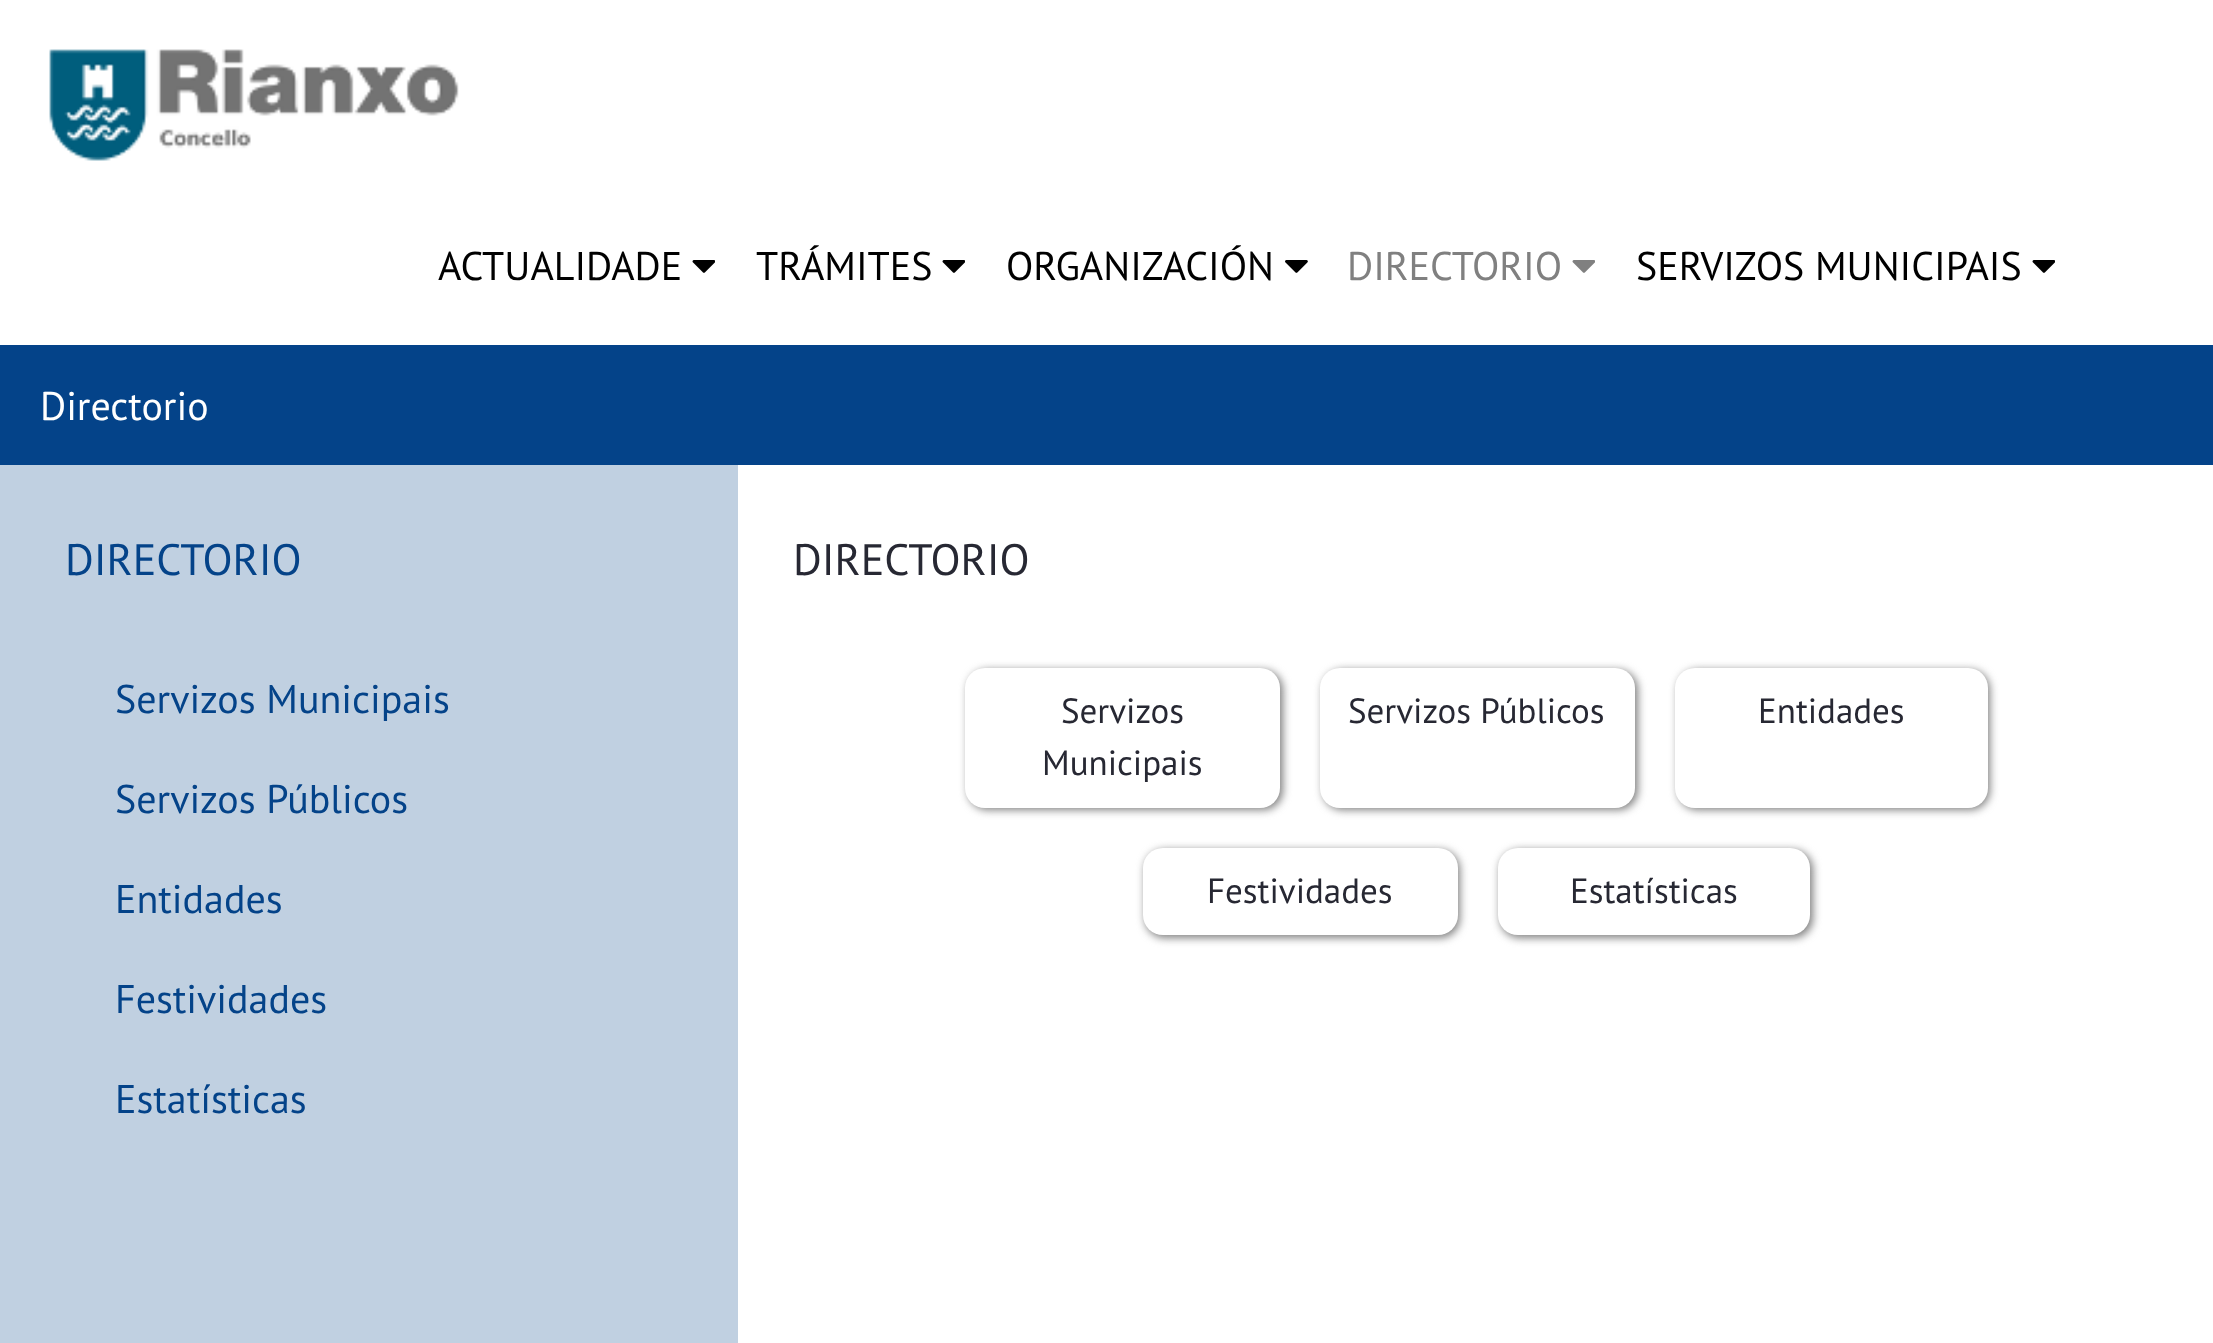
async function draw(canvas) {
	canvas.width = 2213;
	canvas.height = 1343;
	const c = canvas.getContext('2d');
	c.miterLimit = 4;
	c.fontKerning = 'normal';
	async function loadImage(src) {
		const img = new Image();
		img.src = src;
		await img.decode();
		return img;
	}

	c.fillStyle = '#044389';
	c.fillRect(0, 0, 2213, 1343);
	c.fillStyle = '#fff';
	c.fillRect(0, 0, 2213, 345);
	c.drawImage(await loadImage('img1.png'), 49, 49, 410, 112);
	c.font = '40px PT Sans';
	c.fillStyle = '#000';
	c.fillText('ACTUALIDADE', 438, 280);
	c.drawImage(await loadImage('img2.png'), 692, 260, 23, 13);
	c.fillText('TRÁMITES', 756, 280);
	c.drawImage(await loadImage('img2.png'), 942, 260, 23, 13);
	c.fillText('ORGANIZACIÓN', 1006, 280);
	c.drawImage(await loadImage('img3.png'), 1285, 260, 23, 13);
	c.fillStyle = '#808080';
	c.fillText('DIRECTORIO', 1347, 280);
	c.drawImage(await loadImage('img4.png'), 1572, 260, 23, 13);
	c.fillStyle = '#000';
	c.fillText('SERVIZOS MUNICIPAIS', 1636, 280);
	c.drawImage(await loadImage('img2.png'), 2032, 260, 23, 13);
	c.fillStyle = '#fff';
	c.fillText('Directorio', 40, 420);
	c.fillRect(738, 465, 1475, 878);
	c.fillStyle = '#c0d0e1';
	c.fillRect(0, 465, 738, 878);
	c.font = '44px PT Sans';
	c.fillStyle = '#044389';
	c.fillText('DIRECTORIO', 65, 575);
	c.font = '40px PT Sans';
	for (const [text, x, y] of [
		['Servizos Municipais', 115, 713],
		['Servizos Públicos', 115, 813],
		['Entidades', 115, 913],
		['Festividades', 115, 1013],
		['Estatísticas', 115, 1113],
	]) {
		c.fillText(text, x, y);
	}
	c.font = '44px PT Sans';
	c.fillStyle = '#272833';
	c.fillText('DIRECTORIO', 793, 575);
	c.fillStyle = '#808080';
	c.filter = 'blur(4px)';
	c.beginPath();
	c.roundRect(968, 670, 315, 140, 20);
	c.fill();
	c.filter = 'none';
	c.fillStyle = '#fff';
	c.beginPath();
	c.roundRect(965, 668, 315, 140, 20);
	c.fill();
	c.font = '35px PT Sans';
	c.fillStyle = '#272833';
	c.fillText('Servizos', 1061, 723);
	c.fillText('Municipais', 1042, 775);
	c.fillStyle = '#808080';
	c.filter = 'blur(4px)';
	c.beginPath();
	c.roundRect(1323, 670, 315, 140, 20);
	c.fill();
	c.filter = 'none';
	c.fillStyle = '#fff';
	c.beginPath();
	c.roundRect(1320, 668, 315, 140, 20);
	c.fill();
	c.fillStyle = '#272833';
	c.fillText('Servizos Públicos', 1348, 723);
	c.fillStyle = '#808080';
	c.filter = 'blur(4px)';
	c.beginPath();
	c.roundRect(1678, 670, 312, 140, 20);
	c.fill();
	c.filter = 'none';
	c.fillStyle = '#fff';
	c.beginPath();
	c.roundRect(1675, 668, 313, 140, 20);
	c.fill();
	c.fillStyle = '#272833';
	c.fillText('Entidades', 1758, 723);
	c.fillStyle = '#808080';
	c.filter = 'blur(4px)';
	c.beginPath();
	c.roundRect(1145, 850, 315, 88, 20);
	c.fill();
	c.filter = 'none';
	c.fillStyle = '#fff';
	c.beginPath();
	c.roundRect(1143, 848, 315, 87, 20);
	c.fill();
	c.fillStyle = '#272833';
	c.fillText('Festividades', 1207, 903);
	c.fillStyle = '#808080';
	c.filter = 'blur(4px)';
	c.beginPath();
	c.roundRect(1500, 850, 313, 88, 20);
	c.fill();
	c.filter = 'none';
	c.fillStyle = '#fff';
	c.beginPath();
	c.roundRect(1498, 848, 312, 87, 20);
	c.fill();
	c.fillStyle = '#272833';
	c.fillText('Estatísticas', 1570, 903);
}

draw(document.querySelector('canvas'));
